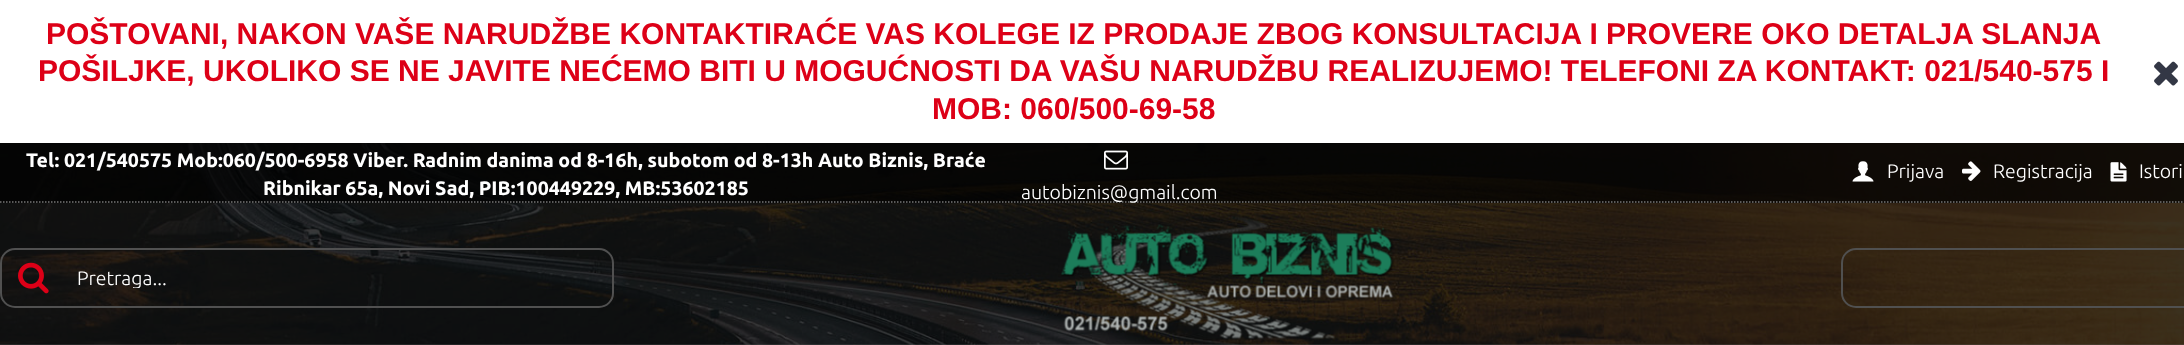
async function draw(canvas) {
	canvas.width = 2184;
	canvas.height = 345;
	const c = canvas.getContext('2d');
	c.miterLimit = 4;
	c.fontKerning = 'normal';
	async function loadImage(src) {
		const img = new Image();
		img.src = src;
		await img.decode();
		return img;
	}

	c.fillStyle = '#fff';
	c.fillRect(0, 0, 2184, 345);
	c.drawImage(await loadImage('img1.png'), 0, 143, 2184, 202);
	c.font = 'bold 30px Liberation Sans';
	c.fillStyle = '#dd0017';
	for (const [text, x, y] of [
		['POŠTOVANI, NAKON VAŠE NARUDŽBE KONTAKTIRAĆE VAS KOLEGE IZ PRODAJE ZBOG KONSULTACIJA I PROVERE OKO DETALJA SLANJA', 46, 44],
		['POŠILJKE, UKOLIKO SE NE JAVITE NEĆEMO BITI U MOGUĆNOSTI DA VAŠU NARUDŽBU REALIZUJEMO! TELEFONI ZA KONTAKT: 021/540-575 I', 38, 81],
		['MOB: 060/500-69-58', 932, 119],
	]) {
		c.fillText(text, x, y);
	}
	c.drawImage(await loadImage('img2.png'), 2154, 61, 24, 25);
	c.fillStyle = '#00000099';
	c.fillRect(0, 143, 2184, 202);
	c.fillStyle = '#000000b3';
	c.fillRect(0, 143, 2184, 60);
	c.beginPath();
	c.moveTo(0, 202);
	c.lineTo(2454, 202);
	c.strokeStyle = '#777';
	c.lineWidth = 1.5;
	c.setLineDash([1.5, 1.5]);
	c.stroke();
	c.font = 'bold 19.5px Ubuntu';
	c.fillStyle = '#fff';
	c.fillText('Tel: 021/540575 Mob:060/500-6958 Viber. Radnim danima od 8-16h, subotom od 8-13h Auto Biznis, Braće', 26, 167);
	c.fillText('Ribnikar 65a, Novi Sad, PIB:100449229, MB:53602185', 263, 195);
	c.drawImage(await loadImage('img3.png'), 1104, 150, 24, 20);
	c.font = '300 19.5px Ubuntu';
	c.fillText('autobiznis@gmail.com', 1021, 199);
	c.drawImage(await loadImage('img4.png'), 1852, 161, 22, 21);
	c.fillText('Prijava', 1887, 178);
	c.drawImage(await loadImage('img5.png'), 1962, 161, 19, 20);
	c.fillText('Registracija', 1993, 178);
	c.drawImage(await loadImage('img6.png'), 2110, 162, 17, 20);
	c.fillText('Istori', 2139, 178);
	c.beginPath();
	c.roundRect(1, 249, 612, 58, 14);
	c.strokeStyle = '#505050';
	c.lineWidth = 2;
	c.setLineDash([]);
	c.stroke();
	c.drawImage(await loadImage('img7.png'), 18, 262, 31, 32);
	c.save();
	c.beginPath();
	c.rect(77, 267, 535, 21);
	c.clip();
	c.fillText('Pretraga...', 77, 285);
	c.restore();
	c.drawImage(await loadImage('img8.png'), 1061, 215, 333, 124);
	c.beginPath();
	c.roundRect(1842, 249, 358, 58, 14);
	c.stroke();
}

draw(document.querySelector('canvas'));
